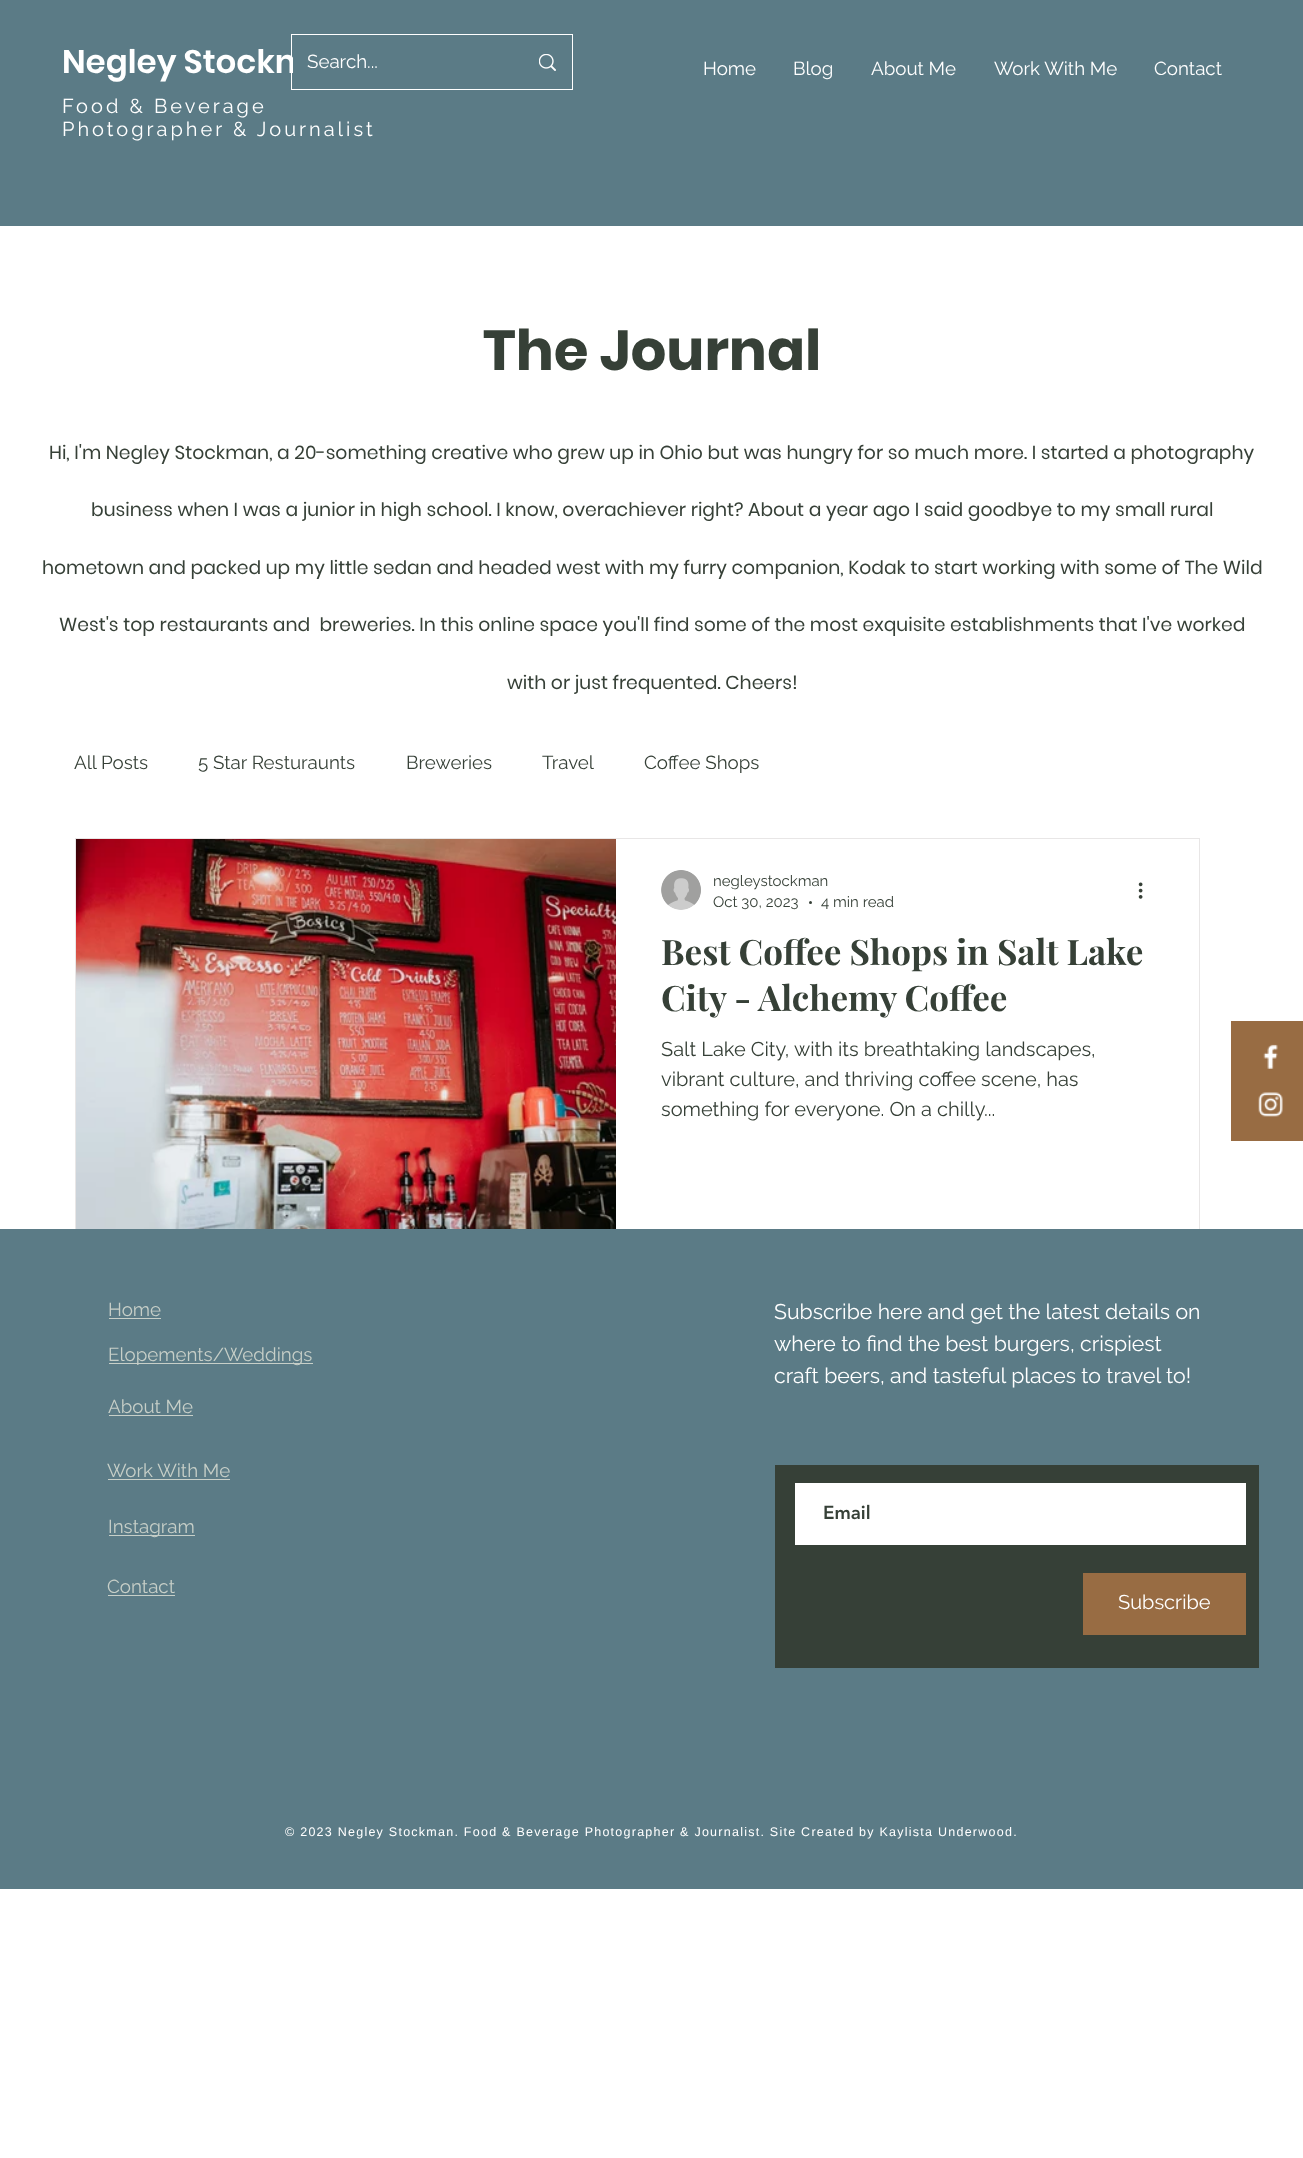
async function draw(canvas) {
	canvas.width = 1303;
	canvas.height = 2158;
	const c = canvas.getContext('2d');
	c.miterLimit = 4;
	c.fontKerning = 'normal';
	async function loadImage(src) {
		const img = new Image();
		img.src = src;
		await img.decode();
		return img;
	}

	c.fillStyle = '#fff';
	c.fillRect(0, 0, 1303, 2158);
	c.fillStyle = '#5b7b86';
	c.fillRect(0, 0, 1303, 226);
	c.font = '600 32.5px Poppins';
	c.fillStyle = '#fff';
	c.fillText('Negley Stockm', 62, 73);
	c.letterSpacing = '3px';
	c.font = '20px Raleway';
	c.fillText('Food & Beverage', 62, 113);
	c.fillText('Photographer & Journalist', 62, 136);
	c.strokeStyle = '#fff';
	c.strokeRect(291.5, 34.5, 281, 55);
	c.fillStyle = '#5b7b86';
	c.fillRect(293, 54, 14, 19);
	c.letterSpacing = '0px';
	c.font = '18.75px Raleway';
	c.fillStyle = '#fff';
	c.fillText('Search...', 307, 68);
	c.drawImage(await loadImage('img1.png'), 539, 54, 17, 17);
	for (const [text, x, y] of [
		['Home', 703, 75],
		['Blog', 793, 75],
		['About Me', 871, 75],
		['Work With Me', 994, 75],
		['Contact', 1154, 75],
	]) {
		c.fillText(text, x, y);
	}
	c.font = 'bold 56.25px Poppins';
	c.fillStyle = '#364037';
	c.fillText('The Journal', 483, 370);
	c.font = '18.75px Poppins';
	for (const [text, x, y] of [
		['Hi, I\'m Negley Stockman, a 20-something creative who grew up in Ohio but was hungry for so much more. I started a photography', 49, 459],
		['business when I was a junior in high school. I know, overachiever right? About a year ago I said goodbye to my small rural', 91, 516],
		['hometown and packed up my little sedan and headed west with my furry companion, Kodak to start working with some of The Wild', 42, 574],
		['West\'s top restaurants and  breweries. In this online space you\'ll find some of the most exquisite establishments that I\'ve worked', 59, 631],
		['with or just frequented. Cheers!', 507, 689],
	]) {
		c.fillText(text, x, y);
	}
	c.font = '18.75px Raleway';
	for (const [text, x, y] of [
		['All Posts', 74, 769],
		['5 Star Resturaunts', 198, 769],
		['Breweries', 406, 769],
		['Travel', 542, 769],
		['Coffee Shops', 644, 769],
	]) {
		c.fillText(text, x, y);
	}
	c.strokeStyle = '#e8e6e6';
	c.strokeRect(75.5, 838.5, 1124, 406);
	c.drawImage(await loadImage('img2.png'), 76, 839, 540, 390);
	c.drawImage(await loadImage('img3.png'), 661, 870, 40, 40);
	c.font = '15px Raleway';
	c.fillText('negleystockman', 713, 886);
	c.fillText('Oct 30, 2023', 713, 907);
	c.beginPath();
	c.arc(810.5, 902.5, 1.5, 0, 2 * Math.PI);
	c.fill();
	c.fillText('4 min read', 821, 907);
	c.drawImage(await loadImage('img4.png'), 1138, 882, 5, 17);
	c.font = 'bold 35px Playfair Display';
	c.fillText('Best Coffee Shops in Salt Lake', 661, 965);
	c.fillText('City - Alchemy Coffee', 661, 1011);
	c.font = '20px Raleway';
	for (const [text, x, y] of [
		['Salt Lake City, with its breathtaking landscapes,', 661, 1056],
		['vibrant culture, and thriving coffee scene, has', 661, 1086],
		['something for everyone. On a chilly...', 661, 1116],
	]) {
		c.fillText(text, x, y);
	}
	c.fillStyle = '#986c43';
	c.fillRect(1231, 1021, 72, 120);
	c.drawImage(await loadImage('img5.png'), 1263, 1044, 15, 25);
	c.drawImage(await loadImage('img6.png'), 1258, 1092, 25, 25);
	c.fillStyle = '#5b7b86';
	c.fillRect(0, 1229, 1303, 660);
	c.font = '18.75px Raleway';
	c.fillStyle = '#c7cfc8';
	c.fillText('Home', 108, 1316);
	c.fillRect(109, 1318, 52, 1);
	c.font = '21.25px Raleway';
	c.fillStyle = '#fff';
	for (const [text, x, y] of [
		['Subscribe here and get the latest details on', 774, 1319],
		['where to find the best burgers, crispiest', 774, 1351],
		['craft beers, and tasteful places to travel to!', 774, 1383],
	]) {
		c.fillText(text, x, y);
	}
	c.fillStyle = '#c7cfc8';
	c.fillRect(109, 1363, 204, 1);
	c.font = '18.75px Raleway';
	c.fillText('Elopements/Weddings', 108, 1361);
	c.fillText('About Me', 108, 1413);
	c.fillRect(109, 1415, 84, 1);
	c.fillText('Work With Me', 107, 1477);
	c.fillRect(108, 1479, 122, 1);
	c.fillRect(109, 1535, 86, 1);
	c.fillText('Instagram', 108, 1533);
	c.fillStyle = '#364037';
	c.fillRect(775, 1465, 484, 203);
	c.fillStyle = '#fff';
	c.fillRect(795, 1483, 451, 62);
	c.font = '900 18.75px "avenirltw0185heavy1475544"';
	c.fillStyle = '#364037';
	c.fillText('Email', 823, 1519);
	c.fillStyle = '#986c43';
	c.fillRect(1083, 1573, 163, 62);
	c.font = '20px "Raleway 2"';
	c.fillStyle = '#fff';
	c.fillText('Subscribe', 1118, 1609);
	c.font = '18.75px Raleway';
	c.fillStyle = '#c7cfc8';
	c.fillText('Contact', 107, 1593);
	c.fillRect(108, 1595, 67, 1);
	c.letterSpacing = '1.25px';
	c.font = '12.5px Liberation Sans';
	c.fillStyle = '#fff';
	c.fillText('© 2023 Negley Stockman. Food & Beverage Photographer & Journalist. Site Created by Kaylista Underwood.', 285, 1836);
}

draw(document.querySelector('canvas'));
